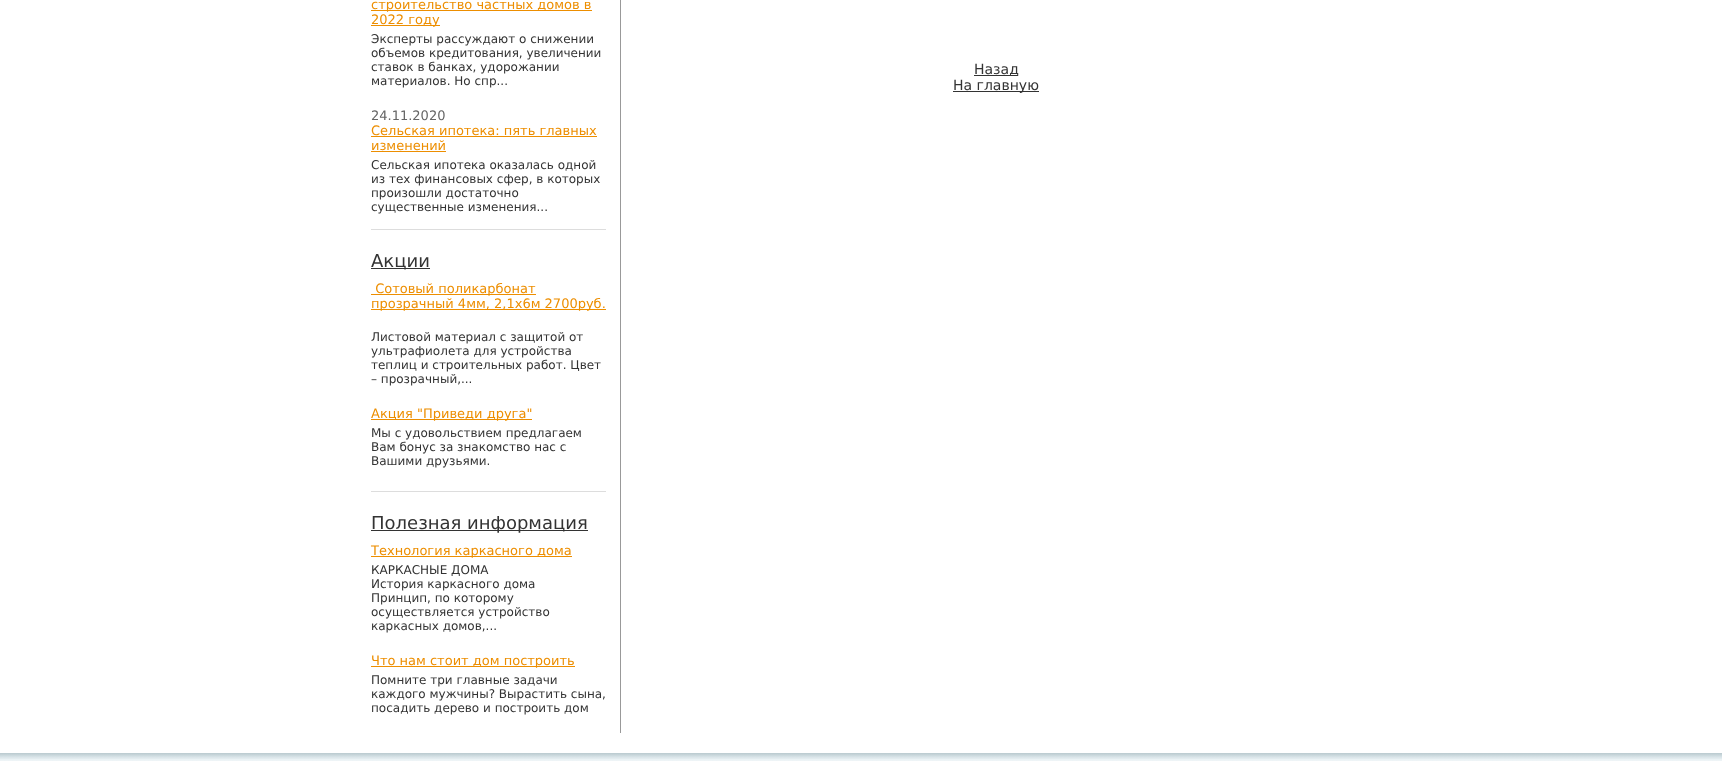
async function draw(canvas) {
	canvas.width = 1722;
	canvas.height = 761;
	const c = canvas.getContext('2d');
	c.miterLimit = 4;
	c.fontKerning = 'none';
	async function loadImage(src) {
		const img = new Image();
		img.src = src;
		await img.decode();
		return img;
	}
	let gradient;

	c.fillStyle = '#fff';
	c.fillRect(0, 0, 1722, 761);
	c.fillStyle = '#ddd';
	c.fillRect(371, 229, 235, 1);
	c.fillStyle = '#ed8e00';
	c.fillRect(371, 10, 221, 1);
	c.font = '13px DejaVu Sans';
	c.fillText('строительство частных домов в', 371, 9);
	c.fillRect(371, 25, 69, 1);
	c.fillText('2022 году', 371, 24);
	c.font = '12px DejaVu Sans';
	c.fillStyle = '#333';
	for (const [text, x, y] of [
		['Эксперты рассуждают о снижении', 371, 43],
		['объемов кредитования, увеличении', 371, 57],
		['ставок в банках, удорожании', 371, 71],
		['материалов. Но спр...', 371, 85],
	]) {
		c.fillText(text, x, y);
	}
	c.font = '13px DejaVu Sans';
	c.fillStyle = '#666';
	c.fillText('24.11.2020', 371, 120);
	c.fillStyle = '#ed8e00';
	c.fillText('Сельская ипотека: пять главных', 371, 135);
	c.fillRect(371, 136, 226, 1);
	c.fillText('изменений', 371, 150);
	c.fillRect(371, 151, 75, 1);
	c.font = '12px DejaVu Sans';
	c.fillStyle = '#333';
	for (const [text, x, y] of [
		['Сельская ипотека оказалась одной', 371, 169],
		['из тех финансовых сфер, в которых', 371, 183],
		['произошли достаточно', 371, 197],
		['существенные изменения...', 371, 211],
	]) {
		c.fillText(text, x, y);
	}
	c.fillStyle = '#ddd';
	c.fillRect(371, 491, 235, 1);
	c.fillStyle = '#333';
	c.fillRect(371, 268, 59, 1);
	c.font = '18px DejaVu Sans';
	c.fillText('Акции', 371, 267);
	c.fillStyle = '#ed8e00';
	c.fillRect(371, 294, 165, 1);
	c.font = '13px DejaVu Sans';
	c.fillText(' Сотовый поликарбонат', 371, 293);
	c.fillRect(371, 309, 235, 1);
	c.fillText('прозрачный 4мм, 2,1х6м 2700руб.', 371, 308);
	c.font = '12px DejaVu Sans';
	c.fillStyle = '#333';
	for (const [text, x, y] of [
		['Листовой материал с защитой от', 371, 341],
		['ультрафиолета для устройства', 371, 355],
		['теплиц и строительных работ. Цвет', 371, 369],
		['– прозрачный,...', 371, 383],
	]) {
		c.fillText(text, x, y);
	}
	c.fillStyle = '#ed8e00';
	c.fillRect(371, 419, 161, 1);
	c.font = '13px DejaVu Sans';
	c.fillText('Акция "Приведи друга"', 371, 418);
	c.font = '12px DejaVu Sans';
	c.fillStyle = '#333';
	for (const [text, x, y] of [
		['Мы с удовольствием предлагаем', 371, 437],
		['Вам бонус за знакомство нас с', 371, 451],
		['Вашими друзьями.', 371, 465],
	]) {
		c.fillText(text, x, y);
	}
	c.fillRect(371, 530, 217, 1);
	c.font = '18px DejaVu Sans';
	c.fillText('Полезная информация', 371, 529);
	c.fillStyle = '#ed8e00';
	c.fillRect(371, 556, 201, 1);
	c.font = '13px DejaVu Sans';
	c.fillText('Технология каркасного дома', 371, 555);
	c.font = '12px DejaVu Sans';
	c.fillStyle = '#333';
	for (const [text, x, y] of [
		['КАРКАСНЫЕ ДОМА', 371, 574],
		['История каркасного дома', 371, 588],
		['Принцип, по которому', 371, 602],
		['осуществляется устройство', 371, 616],
		['каркасных домов,...', 371, 630],
	]) {
		c.fillText(text, x, y);
	}
	c.fillStyle = '#ed8e00';
	c.fillRect(371, 666, 204, 1);
	c.font = '13px DejaVu Sans';
	c.fillText('Что нам стоит дом построить', 371, 665);
	c.font = '12px DejaVu Sans';
	c.fillStyle = '#333';
	for (const [text, x, y] of [
		['Помните три главные задачи', 371, 684],
		['каждого мужчины? Вырастить сына,', 371, 698],
		['посадить дерево и построить дом', 371, 712],
	]) {
		c.fillText(text, x, y);
	}
	c.fillStyle = '#999';
	c.fillRect(620, 0, 1, 733);
	c.fillStyle = '#333';
	c.fillRect(974, 75, 44, 1);
	c.font = '14px DejaVu Sans';
	c.fillText('Назад', 974, 74);
	c.fillRect(953, 91, 86, 1);
	c.fillText('На главную', 953, 90);
	gradient = c.createLinearGradient(861, 753, 861, 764);
	gradient.addColorStop(0, '#dff2f9');
	gradient.addColorStop(1, '#fff');
	c.fillStyle = gradient;
	c.fillRect(0, 753, 1722, 8);
	c.drawImage(await loadImage('img1.png'), 0, 753, 1722, 8);
}

draw(document.querySelector('canvas'));
